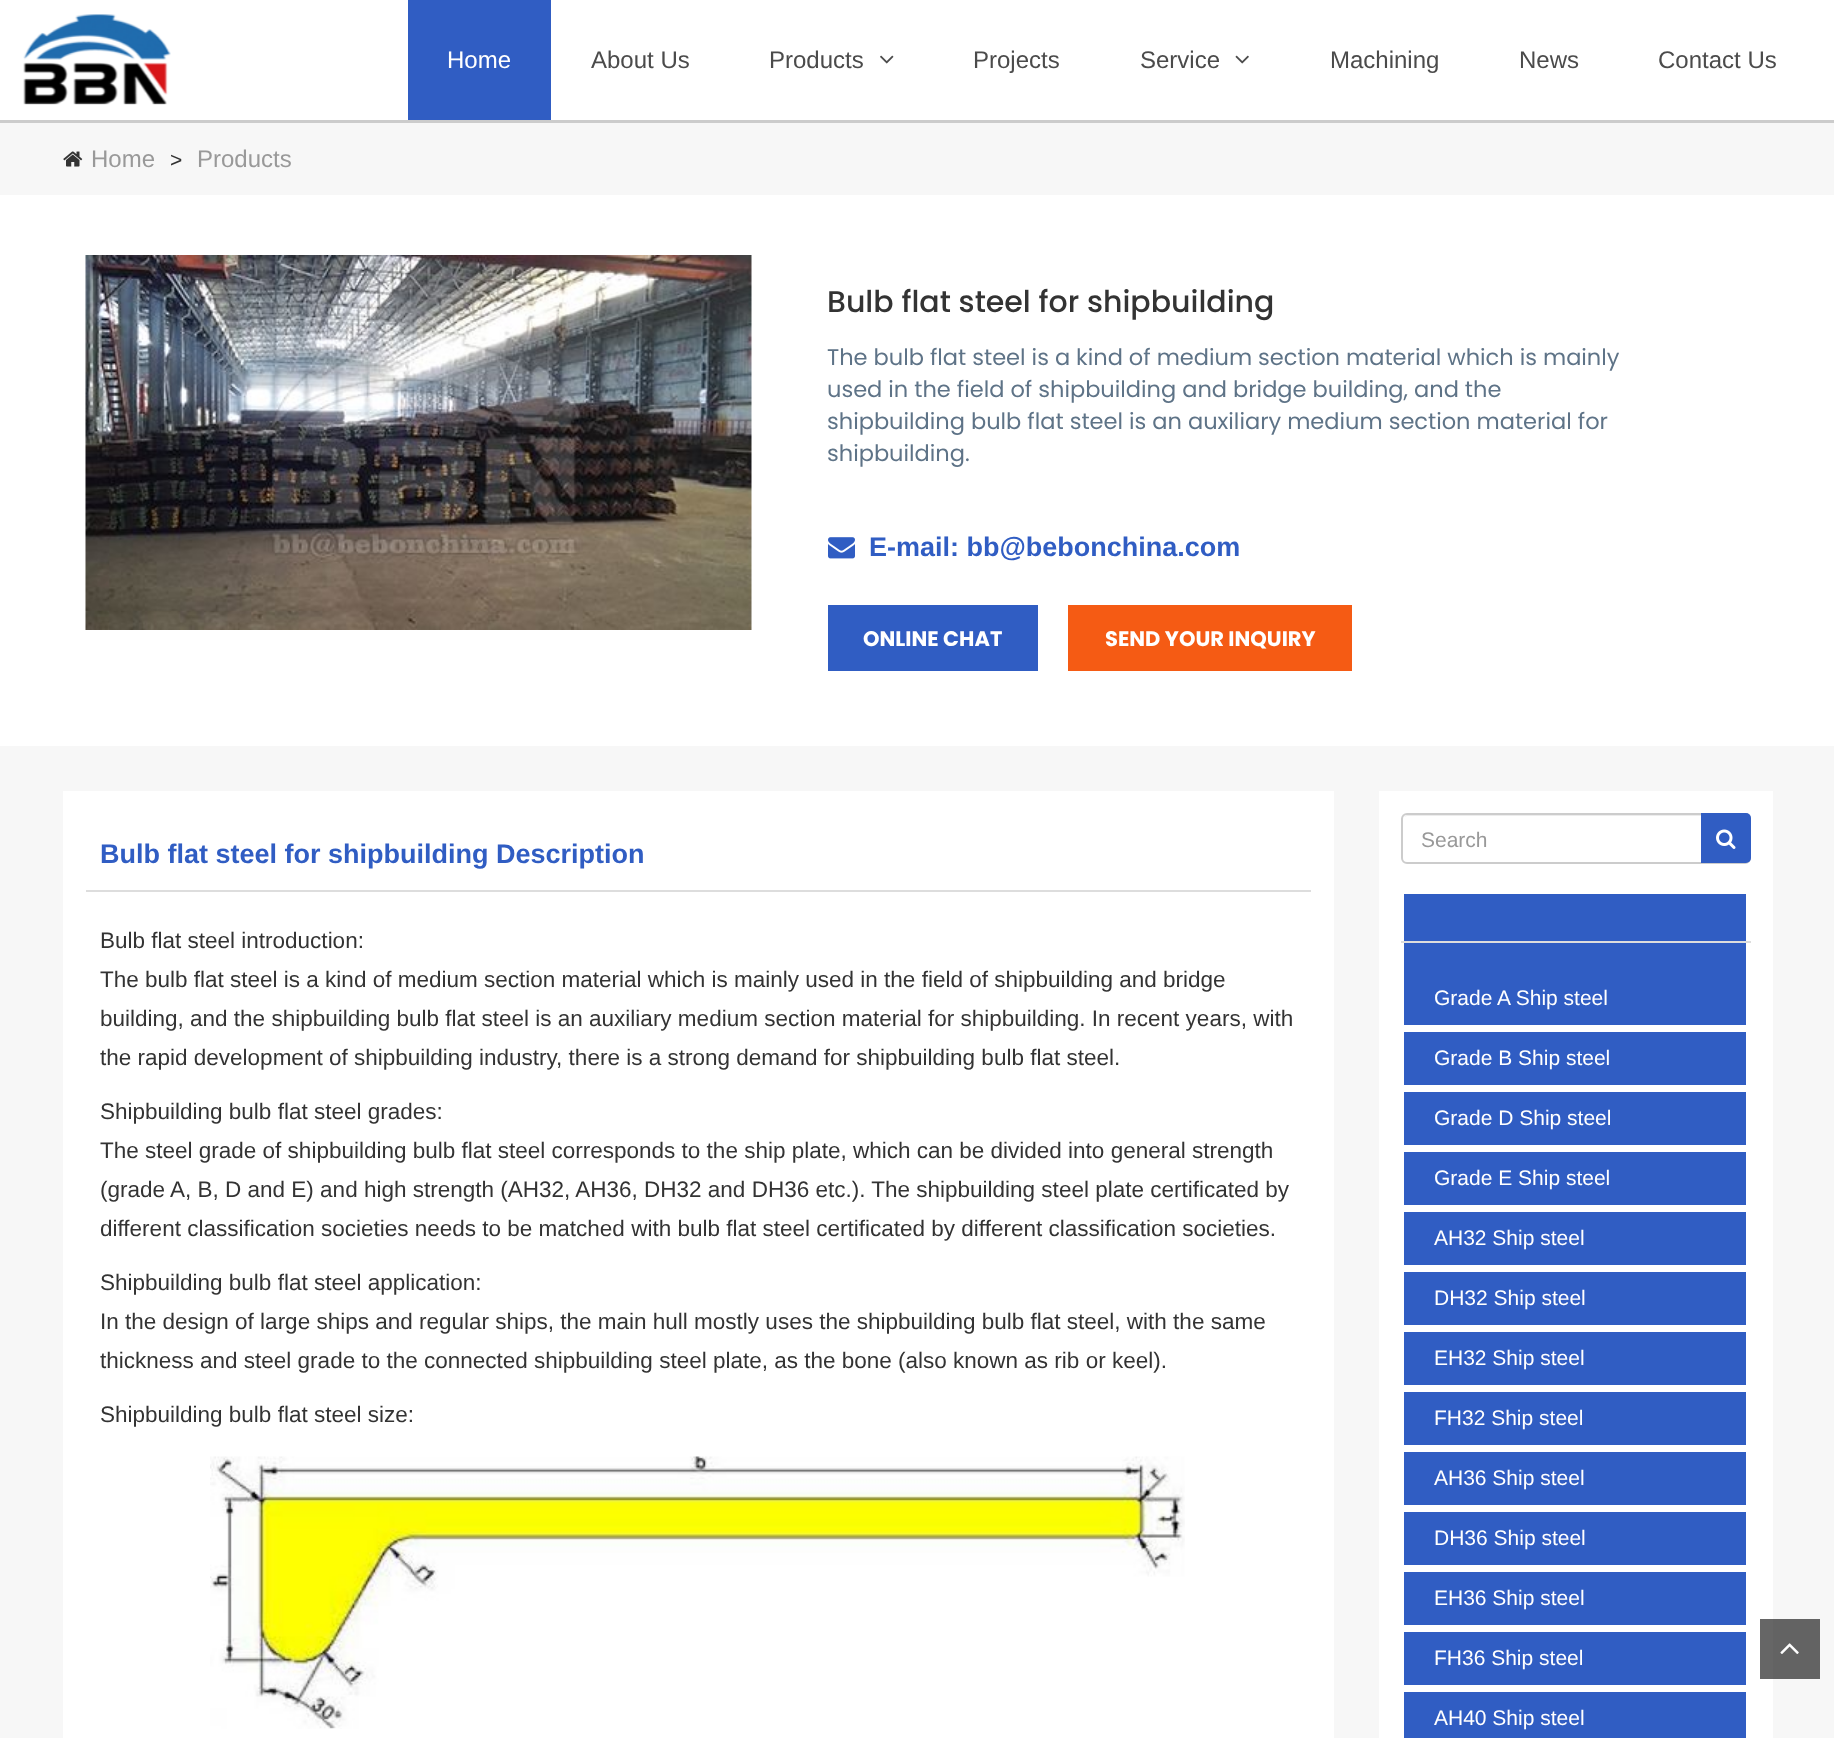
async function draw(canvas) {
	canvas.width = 1834;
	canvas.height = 1738;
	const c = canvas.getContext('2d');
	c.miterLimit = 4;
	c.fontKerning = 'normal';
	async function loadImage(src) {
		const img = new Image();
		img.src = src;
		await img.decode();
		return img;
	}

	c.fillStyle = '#f7f7f7';
	c.fillRect(0, 0, 1834, 1738);
	c.fillStyle = '#fff';
	c.fillRect(0, 0, 1834, 120);
	c.fillStyle = '#ccc';
	c.fillRect(0, 120, 1834, 3);
	c.drawImage(await loadImage('img1.png'), 23, 14, 148, 91);
	c.fillStyle = '#305dc3';
	c.fillRect(408, 0, 143, 120);
	c.font = '24px Liberation Sans';
	c.fillStyle = '#fff';
	c.fillText('Home', 447, 68);
	c.fillStyle = '#4b4b4b';
	c.fillText('About Us', 591, 68);
	c.fillText('Products', 769, 68);
	c.drawImage(await loadImage('img2.png'), 880, 55, 14, 9);
	c.fillText('Projects', 973, 68);
	c.fillText('Service', 1140, 68);
	c.drawImage(await loadImage('img3.png'), 1235, 55, 14, 9);
	for (const [text, x, y] of [
		['Machining', 1330, 68],
		['News', 1519, 68],
		['Contact Us', 1658, 68],
	]) {
		c.fillText(text, x, y);
	}
	c.fillStyle = '#636363';
	c.fillRect(1773, 1619, 47, 60);
	c.drawImage(await loadImage('img4.png'), 63, 151, 20, 16);
	c.fillStyle = '#999';
	c.fillText('Home', 91, 167);
	c.font = '21px Liberation Sans';
	c.fillStyle = '#333';
	c.fillText('>', 170, 167);
	c.font = '24px Liberation Sans';
	c.fillStyle = '#999';
	c.fillText('Products', 197, 167);
	c.fillStyle = '#fff';
	c.fillRect(0, 195, 1834, 551);
	c.drawImage(await loadImage('img5.png'), 85, 255, 667, 375);
	c.font = '500 30px Poppins';
	c.fillStyle = '#333';
	c.fillText('Bulb flat steel for shipbuilding', 827, 312);
	c.font = '22.5px Poppins';
	c.fillStyle = '#5e7387';
	for (const [text, x, y] of [
		['The bulb flat steel is a kind of medium section material which is mainly', 827, 365],
		['used in the field of shipbuilding and bridge building, and the', 827, 397],
		['shipbuilding bulb flat steel is an auxiliary medium section material for', 827, 429],
		['shipbuilding.', 827, 461],
	]) {
		c.fillText(text, x, y);
	}
	c.drawImage(await loadImage('img6.png'), 828, 537, 27, 22);
	c.font = 'bold 27px Liberation Sans';
	c.fillStyle = '#305dc3';
	c.fillText('E-mail: bb@bebonchina.com', 869, 556);
	c.fillRect(828, 605, 210, 66);
	c.font = 'bold 21px Poppins';
	c.fillStyle = '#fff';
	c.fillText('ONLINE CHAT', 863, 646);
	c.fillStyle = '#f55b14';
	c.fillRect(1068, 605, 284, 66);
	c.fillStyle = '#fff';
	c.fillText('SEND YOUR INQUIRY', 1105, 646);
	c.fillRect(63, 791, 1271, 947);
	c.fillStyle = '#ddd';
	c.fillRect(86, 890, 1225, 2);
	c.font = 'bold 27px Liberation Sans';
	c.fillStyle = '#305dc3';
	c.fillText('Bulb flat steel for shipbuilding Description', 100, 863);
	c.font = '22.5px Liberation Sans';
	c.fillStyle = '#333';
	for (const [text, x, y] of [
		['Bulb flat steel introduction:', 100, 948],
		['The bulb flat steel is a kind of medium section material which is mainly used in the field of shipbuilding and bridge', 100, 987],
		['building, and the shipbuilding bulb flat steel is an auxiliary medium section material for shipbuilding. In recent years, with', 100, 1026],
		['the rapid development of shipbuilding industry, there is a strong demand for shipbuilding bulb flat steel.', 100, 1065],
		['Shipbuilding bulb flat steel grades:', 100, 1119],
		['The steel grade of shipbuilding bulb flat steel corresponds to the ship plate, which can be divided into general strength', 100, 1158],
		['(grade A, B, D and E) and high strength (AH32, AH36, DH32 and DH36 etc.). The shipbuilding steel plate certificated by', 100, 1197],
		['different classification societies needs to be matched with bulb flat steel certificated by different classification societies.', 100, 1236],
		['Shipbuilding bulb flat steel application:', 100, 1290],
		['In the design of large ships and regular ships, the main hull mostly uses the shipbuilding bulb flat steel, with the same', 100, 1329],
		['thickness and steel grade to the connected shipbuilding steel plate, as the bone (also known as rib or keel).', 100, 1368],
		['Shipbuilding bulb flat steel size:', 100, 1422],
	]) {
		c.fillText(text, x, y);
	}
	c.drawImage(await loadImage('img7.png'), 210, 1456, 975, 273);
	c.fillStyle = '#fff';
	c.fillRect(1379, 791, 394, 947);
	c.fillStyle = '#666';
	c.fillRect(1760, 1619, 13, 60);
	c.fillStyle = '#ececec';
	c.beginPath();
	c.moveTo(1407, 816);
	c.lineTo(1744, 816);
	c.bezierCurveTo(1747, 816, 1749, 818, 1749, 820);
	c.bezierCurveTo(1749, 817, 1747, 815, 1744, 815);
	c.lineTo(1408, 815);
	c.bezierCurveTo(1406, 815, 1405, 816, 1404, 817);
	c.closePath();
	c.fill();
	c.beginPath();
	c.roundRect(1402, 814, 348, 49, 5);
	c.strokeStyle = '#ccc';
	c.lineWidth = 2;
	c.stroke();
	c.font = '21px Liberation Sans';
	c.fillStyle = '#999';
	c.fillText('Search', 1421, 847);
	c.fillStyle = '#305dc3';
	c.beginPath();
	c.roundRect(1701, 813, 50, 50, [0, 5, 5, 0]);
	c.fill();
	c.drawImage(await loadImage('img8.png'), 1716, 829, 20, 20);
	c.fillRect(1404, 894, 342, 131);
	c.fillStyle = '#ddd';
	c.fillRect(1401, 941, 350, 2);
	c.fillStyle = '#fff';
	c.fillText('Grade A Ship steel', 1434, 1005);
	c.fillStyle = '#305dc3';
	c.fillRect(1404, 1032, 342, 53);
	c.fillStyle = '#fff';
	c.fillText('Grade B Ship steel', 1434, 1065);
	c.fillStyle = '#305dc3';
	c.fillRect(1404, 1092, 342, 53);
	c.fillStyle = '#fff';
	c.fillText('Grade D Ship steel', 1434, 1125);
	c.fillStyle = '#305dc3';
	c.fillRect(1404, 1152, 342, 53);
	c.fillStyle = '#fff';
	c.fillText('Grade E Ship steel', 1434, 1185);
	c.fillStyle = '#305dc3';
	c.fillRect(1404, 1212, 342, 53);
	c.fillStyle = '#fff';
	c.fillText('AH32 Ship steel', 1434, 1245);
	c.fillStyle = '#305dc3';
	c.fillRect(1404, 1272, 342, 53);
	c.fillStyle = '#fff';
	c.fillText('DH32 Ship steel', 1434, 1305);
	c.fillStyle = '#305dc3';
	c.fillRect(1404, 1332, 342, 53);
	c.fillStyle = '#fff';
	c.fillText('EH32 Ship steel', 1434, 1365);
	c.fillStyle = '#305dc3';
	c.fillRect(1404, 1392, 342, 53);
	c.fillStyle = '#fff';
	c.fillText('FH32 Ship steel', 1434, 1425);
	c.fillStyle = '#305dc3';
	c.fillRect(1404, 1452, 342, 53);
	c.fillStyle = '#fff';
	c.fillText('AH36 Ship steel', 1434, 1485);
	c.fillStyle = '#305dc3';
	c.fillRect(1404, 1512, 342, 53);
	c.fillStyle = '#fff';
	c.fillText('DH36 Ship steel', 1434, 1545);
	c.fillStyle = '#305dc3';
	c.fillRect(1404, 1572, 342, 53);
	c.fillStyle = '#fff';
	c.fillText('EH36 Ship steel', 1434, 1605);
	c.fillStyle = '#305dc3';
	c.fillRect(1404, 1632, 342, 53);
	c.fillStyle = '#fff';
	c.fillText('FH36 Ship steel', 1434, 1665);
	c.fillStyle = '#305dc3';
	c.fillRect(1404, 1692, 342, 46);
	c.fillStyle = '#fff';
	c.fillText('AH40 Ship steel', 1434, 1725);
	c.drawImage(await loadImage('img9.png'), 1780, 1643, 19, 11);
}

draw(document.querySelector('canvas'));
